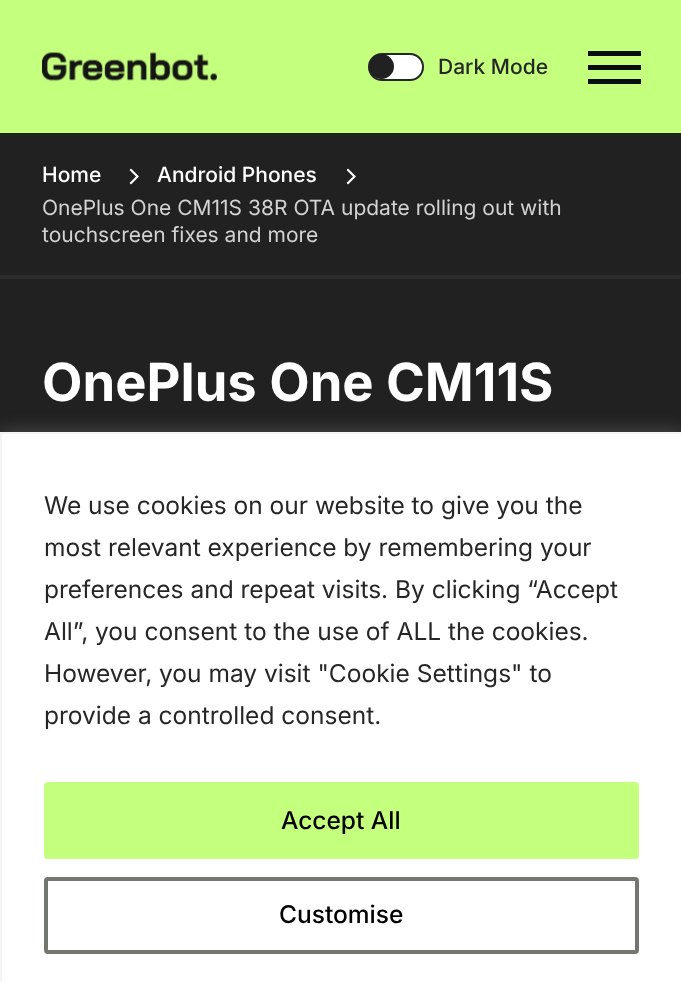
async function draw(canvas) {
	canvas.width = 681;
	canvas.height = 982;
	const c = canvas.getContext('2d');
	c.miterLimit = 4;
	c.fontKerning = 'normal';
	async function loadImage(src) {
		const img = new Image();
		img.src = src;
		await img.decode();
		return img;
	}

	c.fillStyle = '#212121';
	c.fillRect(0, 0, 681, 982);
	c.fillStyle = '#c4ff7d';
	c.fillRect(0, 0, 681, 133);
	c.drawImage(await loadImage('img1.png'), 42, 52, 175, 30);
	c.fillStyle = '#fff';
	c.beginPath();
	c.roundRect(369, 54, 54, 26, 13);
	c.fill();
	c.strokeStyle = '#262626';
	c.lineWidth = 2;
	c.stroke();
	c.fillStyle = '#212121';
	c.beginPath();
	c.arc(381.5, 66.5, 12.5, 0, 2 * Math.PI);
	c.fill();
	c.font = '500 21px Inter';
	c.fillStyle = '#262626';
	c.fillText('Dark Mode', 438, 74);
	for (const [x, y, w, h, color] of [
		[588, 51, 53, 5, '#080e0f'],
		[588, 65, 53, 5, '#080e0f'],
		[588, 79, 53, 5, '#080e0f'],
		[0, 275, 681, 4, '#2c2c2c'],
	]) {
		c.fillStyle = color;
		c.fillRect(x, y, w, h);
	}
	c.fillStyle = '#fff';
	c.fillText('Home', 42, 182);
	c.drawImage(await loadImage('img2.png'), 129, 168, 10, 17);
	c.fillText('Android Phones', 157, 182);
	c.drawImage(await loadImage('img2.png'), 346, 168, 10, 17);
	c.font = '21px Inter';
	c.fillStyle = '#d3d3d3';
	c.fillText('OnePlus One CM11S 38R OTA update rolling out with', 42, 215);
	c.fillText('touchscreen fixes and more', 42, 242);
	c.font = 'bold 52.5px Inter';
	c.fillStyle = '#fff';
	c.fillText('OnePlus One CM11S', 42, 401);
	c.fillStyle = '#acabab4d';
	c.filter = 'blur(9px)';
	c.beginPath();
	c.rect(0, 431, 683, 551);
	c.fill();
	c.filter = 'none';
	c.fillStyle = '#fff';
	c.beginPath();
	c.rect(1, 433, 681, 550);
	c.fill();
	c.strokeStyle = '#f4f4f4';
	c.stroke();
	c.font = '24.5px Inter';
	c.fillStyle = '#262626';
	for (const [text, x, y] of [
		['We use cookies on our website to give you the', 44, 514],
		['most relevant experience by remembering your', 44, 556],
		['preferences and repeat visits. By clicking “Accept', 44, 598],
		['All”, you consent to the use of ALL the cookies.', 44, 640],
		['However, you may visit "Cookie Settings" to', 44, 682],
		['provide a controlled consent.', 44, 724],
	]) {
		c.fillText(text, x, y);
	}
	c.fillStyle = '#c4ff7d';
	c.beginPath();
	c.roundRect(46, 784, 591, 73, 2);
	c.fill();
	c.strokeStyle = '#c4ff7d';
	c.lineWidth = 4;
	c.stroke();
	c.font = '500 24.5px Inter';
	c.fillStyle = '#000';
	c.fillText('Accept All', 281, 829);
	c.beginPath();
	c.roundRect(46, 879, 591, 73, 2);
	c.strokeStyle = '#747770';
	c.stroke();
	c.fillText('Customise', 279, 923);
}

draw(document.querySelector('canvas'));
